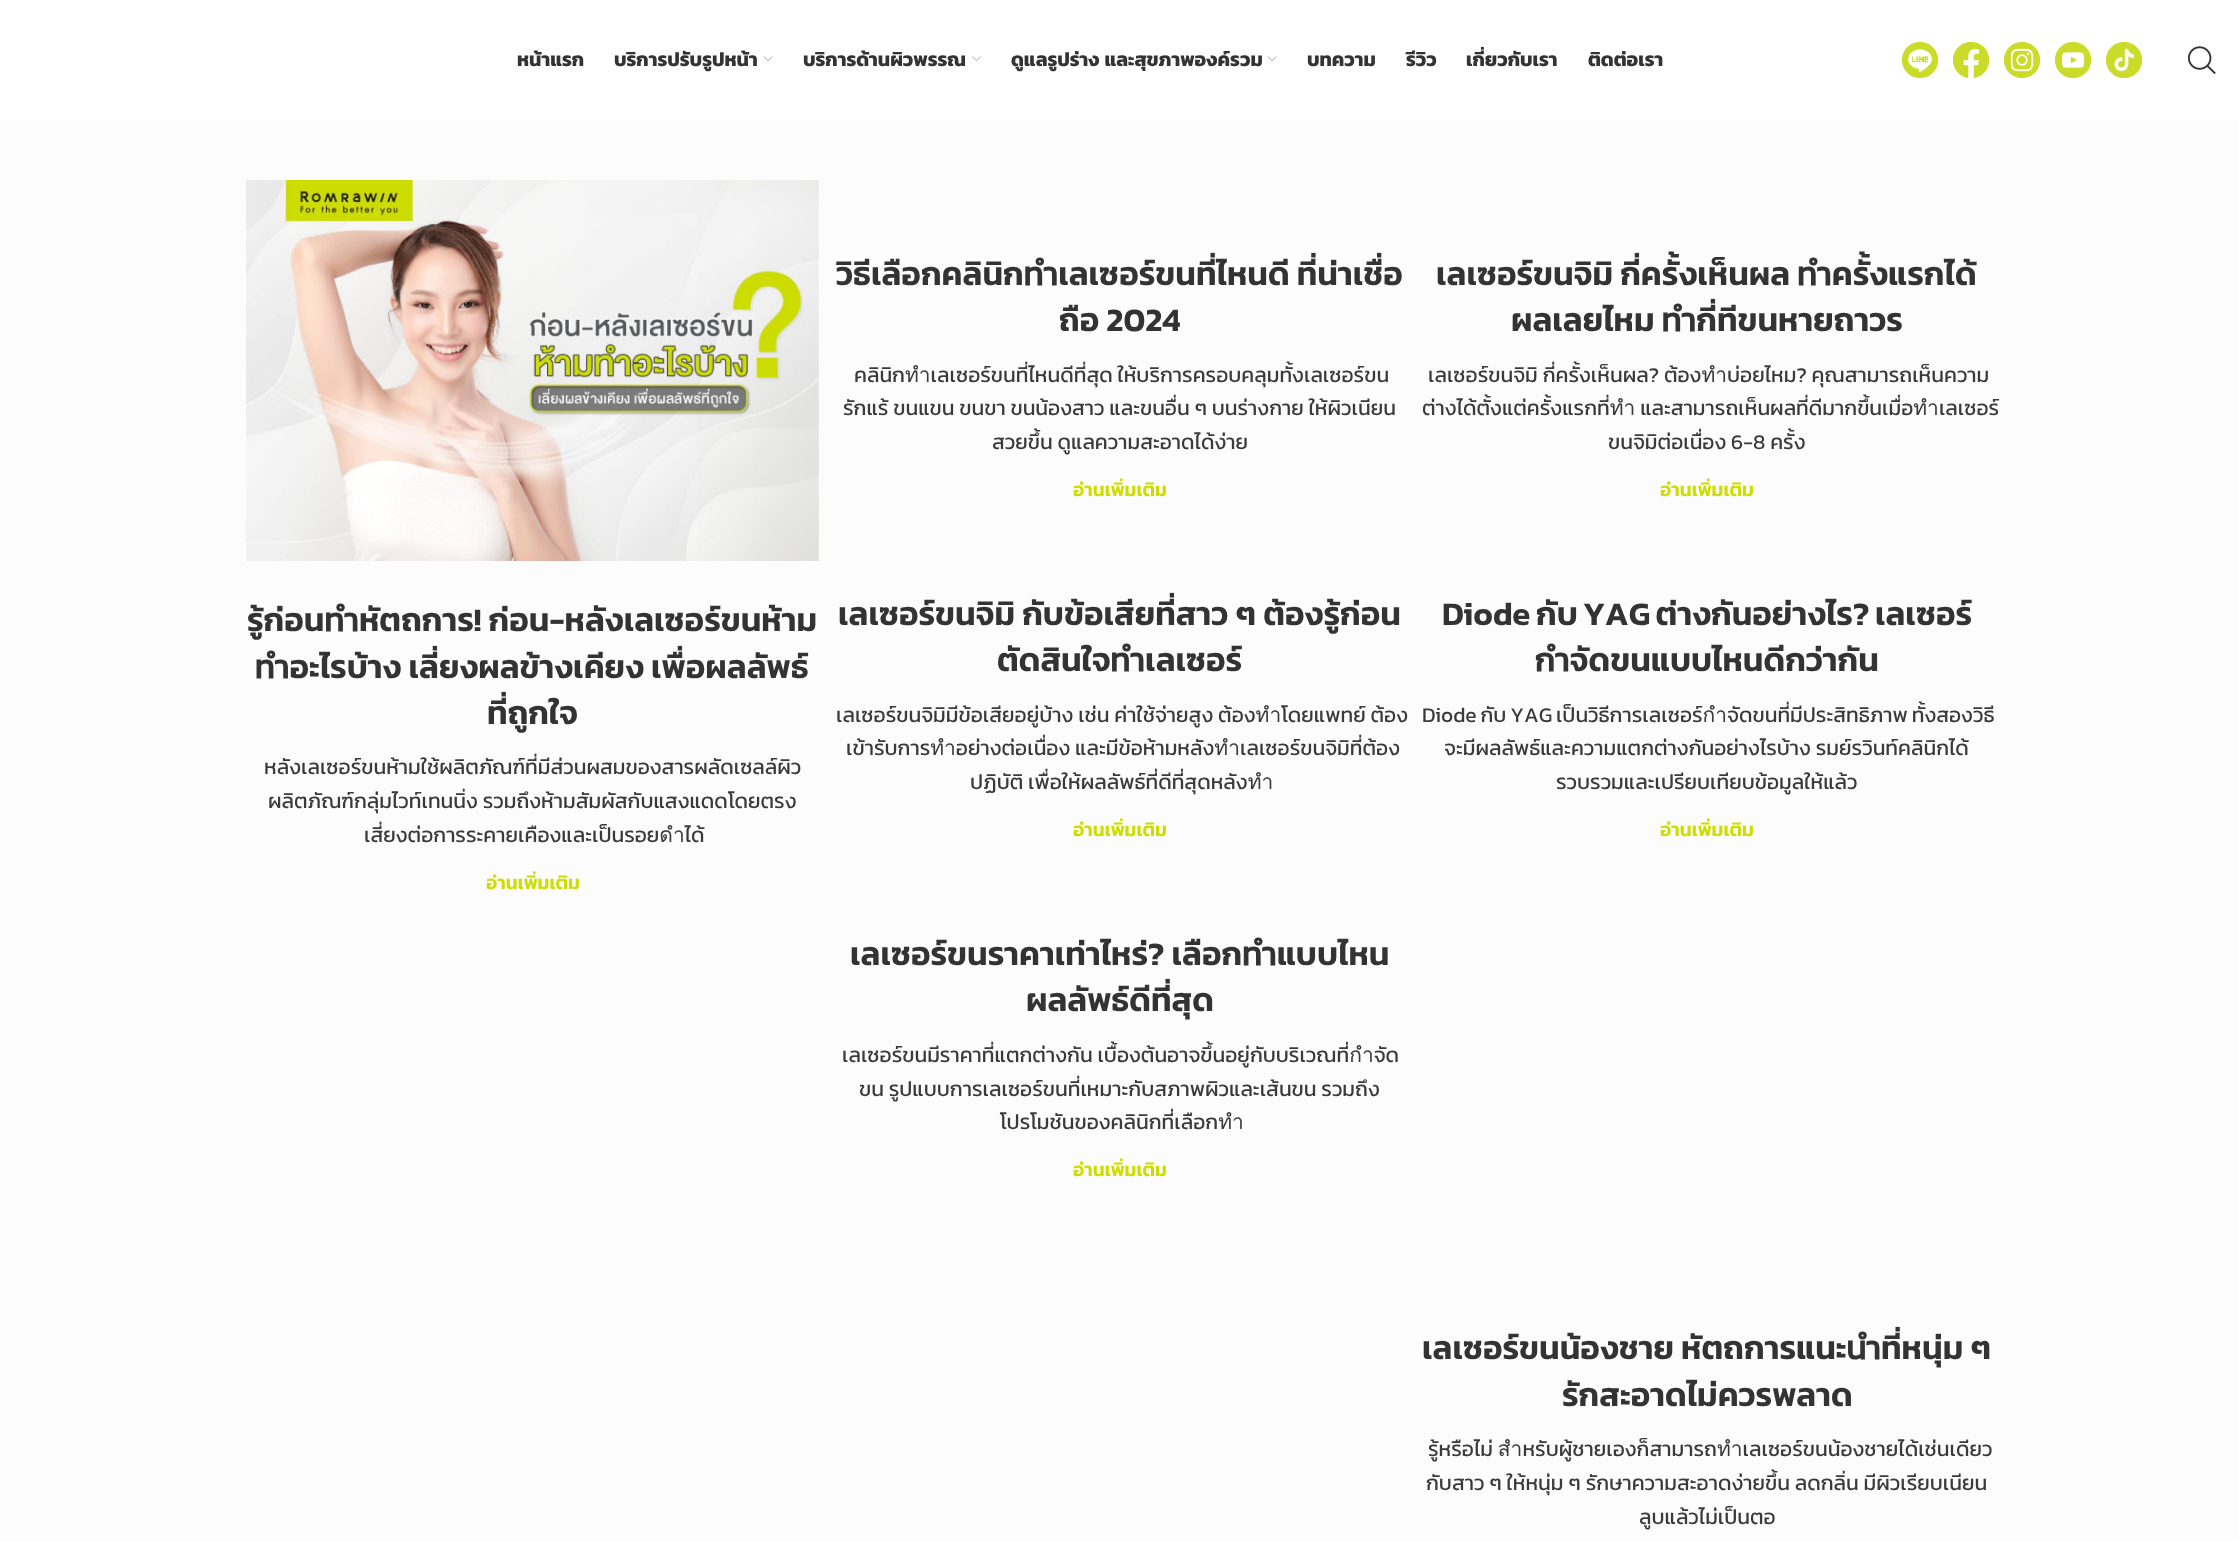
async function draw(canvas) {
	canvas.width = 2239;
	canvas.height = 1542;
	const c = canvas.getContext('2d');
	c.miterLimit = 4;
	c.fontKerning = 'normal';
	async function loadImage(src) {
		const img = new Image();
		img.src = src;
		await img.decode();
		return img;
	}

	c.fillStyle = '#fff';
	c.fillRect(0, 0, 2239, 1542);
	c.font = 'bold 19.5px Kanit';
	c.fillStyle = '#333';
	c.fillText('หน้าแรก', 517, 66);
	c.fillText('บริการปรับรูปหน้า', 614, 66);
	c.drawImage(await loadImage('img1.png'), 763, 56, 10, 5);
	c.fillText('บริการด้านผิวพรรณ', 803, 66);
	c.drawImage(await loadImage('img2.png'), 972, 56, 9, 5);
	c.fillText('ดูแลรูปร่าง และสุขภาพองค์รวม', 1011, 66);
	c.drawImage(await loadImage('img1.png'), 1267, 56, 10, 5);
	for (const [text, x, y] of [
		['บทความ', 1307, 66],
		['รีวิว', 1406, 66],
		['เกี่ยวกับเรา', 1466, 66],
		['ติดต่อเรา', 1588, 66],
	]) {
		c.fillText(text, x, y);
	}
	c.drawImage(await loadImage('img3.png'), 1902, 42, 36, 36);
	c.drawImage(await loadImage('img4.png'), 1953, 42, 36, 36);
	c.drawImage(await loadImage('img5.png'), 2004, 42, 36, 36);
	c.drawImage(await loadImage('img6.png'), 2055, 42, 36, 36);
	c.drawImage(await loadImage('img7.png'), 2106, 42, 36, 36);
	c.drawImage(await loadImage('img8.png'), 2188, 46, 28, 29);
	c.fillStyle = '#fcfcfc';
	c.fillRect(0, 120, 2239, 1422);
	c.font = '600 33px Kanit';
	c.fillStyle = '#333';
	c.fillText('วิธีเลือกคลินิกทำเลเซอร์ขนที่ไหนดี ที่น่าเชื่อ', 836, 285);
	c.fillText('ถือ 2024', 1059, 331);
	c.font = '21px Kanit';
	c.fillStyle = '#3a3a3a';
	for (const [text, x, y] of [
		['คลินิกทำเลเซอร์ขนที่ไหนดีที่สุด ให้บริการครอบคลุมทั้งเลเซอร์ขน', 854, 382],
		['รักแร้ ขนแขน ขนขา ขนน้องสาว และขนอื่น ๆ บนร่างกาย ให้ผิวเนียน', 843, 415],
		['สวยขึ้น ดูแลความสะอาดได้ง่าย', 992, 449],
	]) {
		c.fillText(text, x, y);
	}
	c.font = '600 19px Kanit';
	c.fillStyle = '#cedd00';
	c.fillText('อ่านเพิ่มเติม', 1073, 496);
	c.font = '600 33px Kanit';
	c.fillStyle = '#333';
	c.fillText('เลเซอร์ขนจิมิ กี่ครั้งเห็นผล ทำครั้งแรกได้', 1436, 285);
	c.fillText('ผลเลยไหม ทำกี่ทีขนหายถาวร', 1511, 331);
	c.font = '21px Kanit';
	c.fillStyle = '#3a3a3a';
	for (const [text, x, y] of [
		['เลเซอร์ขนจิมิ กี่ครั้งเห็นผล? ต้องทำบ่อยไหม? คุณสามารถเห็นความ', 1428, 382],
		['ต่างได้ตั้งแต่ครั้งแรกที่ทำ และสามารถเห็นผลที่ดีมากขึ้นเมื่อทำเลเซอร์', 1422, 415],
		['ขนจิมิต่อเนื่อง 6-8 ครั้ง', 1608, 449],
	]) {
		c.fillText(text, x, y);
	}
	c.font = '600 19px Kanit';
	c.fillStyle = '#cedd00';
	c.fillText('อ่านเพิ่มเติม', 1660, 496);
	c.drawImage(await loadImage('img9.png'), 246, 180, 573, 381);
	c.font = '600 33px Kanit';
	c.fillStyle = '#333';
	for (const [text, x, y] of [
		['รู้ก่อนทำหัตถการ! ก่อน-หลังเลเซอร์ขนห้าม', 247, 631],
		['ทำอะไรบ้าง เลี่ยงผลข้างเคียง เพื่อผลลัพธ์', 255, 678],
		['ที่ถูกใจ', 487, 724],
	]) {
		c.fillText(text, x, y);
	}
	c.font = '21px Kanit';
	c.fillStyle = '#3a3a3a';
	for (const [text, x, y] of [
		['หลังเลเซอร์ขนห้ามใช้ผลิตภัณฑ์ที่มีส่วนผสมของสารผลัดเซลล์ผิว', 264, 774],
		['ผลิตภัณฑ์กลุ่มไวท์เทนนิ่ง รวมถึงห้ามสัมผัสกับแสงแดดโดยตรง', 268, 808],
		['เสี่ยงต่อการระคายเคืองและเป็นรอยดำได้', 364, 842],
	]) {
		c.fillText(text, x, y);
	}
	c.font = '600 19px Kanit';
	c.fillStyle = '#cedd00';
	c.fillText('อ่านเพิ่มเติม', 486, 889);
	c.font = '600 33px Kanit';
	c.fillStyle = '#333';
	c.fillText('เลเซอร์ขนจิมิ กับข้อเสียที่สาว ๆ ต้องรู้ก่อน', 838, 625);
	c.fillText('ตัดสินใจทำเลเซอร์', 997, 671);
	c.font = '21px Kanit';
	c.fillStyle = '#3a3a3a';
	for (const [text, x, y] of [
		['เลเซอร์ขนจิมิมีข้อเสียอยู่บ้าง เช่น ค่าใช้จ่ายสูง ต้องทำโดยแพทย์ ต้อง', 836, 722],
		['เข้ารับการทำอย่างต่อเนื่อง และมีข้อห้ามหลังทำเลเซอร์ขนจิมิที่ต้อง', 846, 755],
		['ปฏิบัติ เพื่อให้ผลลัพธ์ที่ดีที่สุดหลังทำ', 970, 789],
	]) {
		c.fillText(text, x, y);
	}
	c.font = '600 19px Kanit';
	c.fillStyle = '#cedd00';
	c.fillText('อ่านเพิ่มเติม', 1073, 836);
	c.wordSpacing = '-1.5px';
	c.font = '600 33px Kanit';
	c.fillStyle = '#333';
	c.fillText('Diode กับ YAG ต่างกันอย่างไร? เลเซอร์', 1442, 625);
	c.wordSpacing = '0px';
	c.fillText('กำจัดขนแบบไหนดีกว่ากัน', 1535, 671);
	c.wordSpacing = '-1px';
	c.font = '21px Kanit';
	c.fillStyle = '#3a3a3a';
	c.fillText('Diode กับ YAG เป็นวิธีการเลเซอร์กำจัดขนที่มีประสิทธิภาพ ทั้งสองวิธี', 1422, 722);
	c.wordSpacing = '0px';
	c.fillText('จะมีผลลัพธ์และความแตกต่างกันอย่างไรบ้าง รมย์รวินท์คลินิกได้', 1444, 755);
	c.fillText('รวบรวมและเปรียบเทียบข้อมูลให้แล้ว', 1556, 789);
	c.font = '600 19px Kanit';
	c.fillStyle = '#cedd00';
	c.fillText('อ่านเพิ่มเติม', 1660, 836);
	c.font = '600 33px Kanit';
	c.fillStyle = '#333';
	c.fillText('เลเซอร์ขนราคาเท่าไหร่? เลือกทำแบบไหน', 850, 965);
	c.fillText('ผลลัพธ์ดีที่สุด', 1026, 1011);
	c.font = '21px Kanit';
	c.fillStyle = '#3a3a3a';
	for (const [text, x, y] of [
		['เลเซอร์ขนมีราคาที่แตกต่างกัน เบื้องต้นอาจขึ้นอยู่กับบริเวณที่กำจัด', 842, 1062],
		['ขน รูปแบบการเลเซอร์ขนที่เหมาะกับสภาพผิวและเส้นขน รวมถึง', 859, 1096],
		['โปรโมชันของคลินิกที่เลือกทำ', 1000, 1129],
	]) {
		c.fillText(text, x, y);
	}
	c.font = '600 19px Kanit';
	c.fillStyle = '#cedd00';
	c.fillText('อ่านเพิ่มเติม', 1073, 1176);
	c.font = '600 33px Kanit';
	c.fillStyle = '#333';
	c.fillText('เลเซอร์ขนน้องชาย หัตถการแนะนำที่หนุ่ม ๆ', 1422, 1359);
	c.fillText('รักสะอาดไม่ควรพลาด', 1562, 1406);
	c.font = '21px Kanit';
	c.fillStyle = '#3a3a3a';
	for (const [text, x, y] of [
		['รู้หรือไม่ สำหรับผู้ชายเองก็สามารถทำเลเซอร์ขนน้องชายได้เช่นเดียว', 1428, 1456],
		['กับสาว ๆ ให้หนุ่ม ๆ รักษาความสะอาดง่ายขึ้น ลดกลิ่น มีผิวเรียบเนียน', 1426, 1490],
		['ลูบแล้วไม่เป็นตอ', 1639, 1524],
	]) {
		c.fillText(text, x, y);
	}
}

draw(document.querySelector('canvas'));
